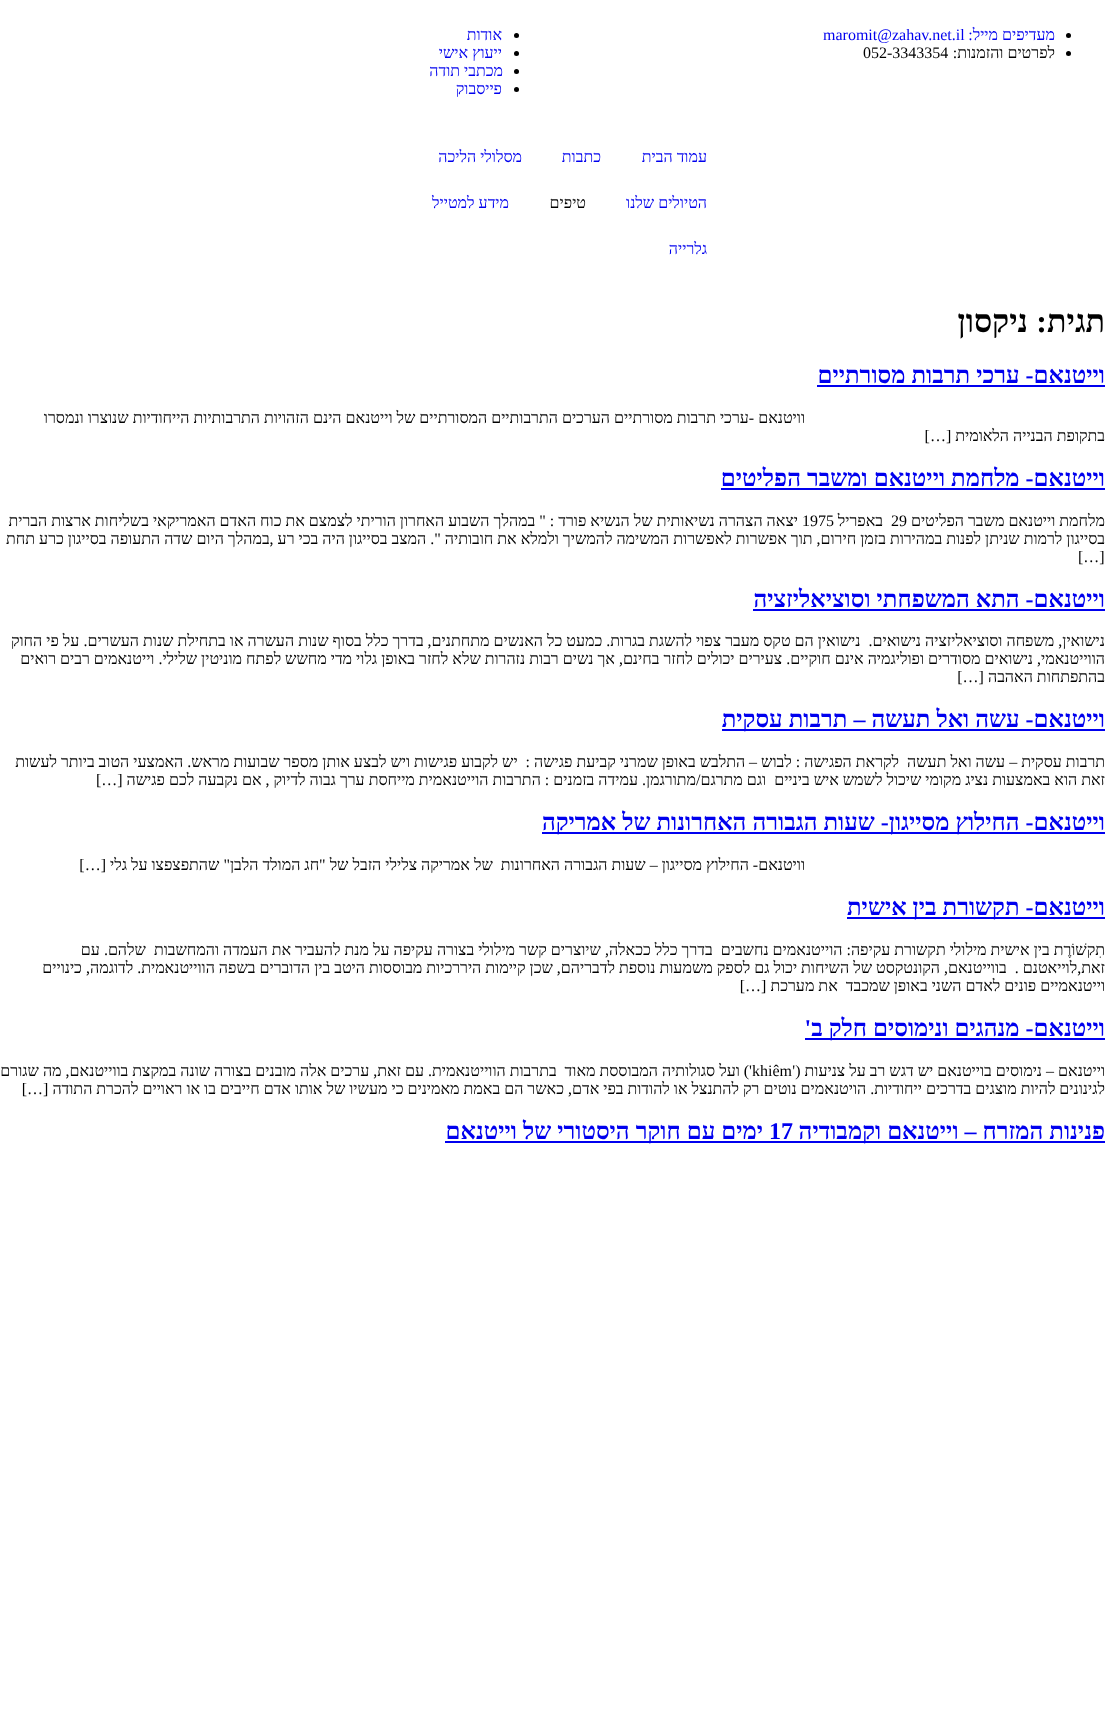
async function draw(canvas) {
	canvas.width = 1105;
	canvas.height = 1725;
	const c = canvas.getContext('2d');
	c.miterLimit = 4;
	c.fontKerning = 'normal';

	c.fillStyle = '#fff';
	c.fillRect(0, 0, 1105, 1725);
	c.fillStyle = '#000';
	c.beginPath();
	c.arc(1068.5, 35.5, 2.5, 0, 2 * Math.PI);
	c.fill();
	c.direction = 'rtl';
	c.font = '16px Liberation Serif';
	c.fillStyle = '#00e';
	c.fillText('מעדיפים מייל:', 1055, 40);
	c.direction = 'ltr';
	c.fillText('maromit@zahav.net.il', 823, 40);
	c.fillStyle = '#000';
	c.beginPath();
	c.arc(1068.5, 53.5, 2.5, 0, 2 * Math.PI);
	c.fill();
	c.direction = 'rtl';
	c.fillText('לפרטים והזמנות:', 1055, 58);
	c.direction = 'ltr';
	c.fillText('052-3343354', 863, 58);
	c.beginPath();
	c.arc(516.5, 35.5, 2.5, 0, 2 * Math.PI);
	c.fill();
	c.direction = 'rtl';
	c.fillStyle = '#00e';
	c.fillText('אודות', 502, 40);
	c.fillStyle = '#000';
	c.beginPath();
	c.arc(516.5, 53.5, 2.5, 0, 2 * Math.PI);
	c.fill();
	c.fillStyle = '#00e';
	c.fillText('ייעוץ אישי', 502, 58);
	c.fillStyle = '#000';
	c.beginPath();
	c.arc(516.5, 71.5, 2.5, 0, 2 * Math.PI);
	c.fill();
	c.fillStyle = '#00e';
	c.fillText('מכתבי תודה', 503, 76);
	c.fillStyle = '#000';
	c.beginPath();
	c.arc(516.5, 89.5, 2.5, 0, 2 * Math.PI);
	c.fill();
	c.fillStyle = '#00e';
	for (const [text, x, y] of [
		['פייסבוק', 502, 94],
		['עמוד הבית', 707, 162],
		['כתבות', 601, 162],
		['מסלולי הליכה', 522, 162],
		['הטיולים שלנו', 707, 208],
	]) {
		c.fillText(text, x, y);
	}
	c.fillStyle = '#000';
	c.fillText('טיפים', 586, 208);
	c.fillStyle = '#00e';
	c.fillText('מידע למטייל', 509, 208);
	c.fillText('גלרייה', 707, 254);
	c.font = 'bold 32px Liberation Serif';
	c.fillStyle = '#000';
	c.fillText('תגית:', 1105, 332);
	c.fillText('ניקסון', 1028, 332);
	c.font = 'bold 24px Liberation Serif';
	c.fillStyle = '#00e';
	c.fillText('וייטנאם- ערכי תרבות מסורתיים', 1105, 383);
	c.fillRect(817, 385, 288, 2);
	c.font = '16px Liberation Serif';
	c.fillStyle = '#000';
	c.fillText('וויטנאם -ערכי תרבות מסורתיים הערכים התרבותיים המסורתיים של וייטנאם הינם הזהויות התרבותיות הייחודיות שנוצרו ונמסרו', 805, 423);
	c.fillText('בתקופת הבנייה הלאומית […]', 1105, 441);
	c.font = 'bold 24px Liberation Serif';
	c.fillStyle = '#00e';
	c.fillText('וייטנאם- מלחמת וייטנאם ומשבר הפליטים', 1105, 486);
	c.fillRect(721, 488, 384, 2);
	c.font = '16px Liberation Serif';
	c.fillStyle = '#000';
	c.fillText('מלחמת וייטנאם משבר הפליטים', 1105, 526);
	c.direction = 'ltr';
	c.fillText('29', 891, 526);
	c.direction = 'rtl';
	c.fillText('באפריל', 883, 526);
	c.direction = 'ltr';
	c.fillText('1975', 802, 526);
	c.direction = 'rtl';
	c.fillText('יצאה הצהרה נשיאותית של הנשיא פורד : " במהלך השבוע האחרון הוריתי לצמצם את כוח האדם האמריקאי בשליחות ארצות הברית', 798, 526);
	c.fillText('בסייגון לרמות שניתן לפנות במהירות בזמן חירום, תוך אפשרות לאפשרות המשימה להמשיך ולמלא את חובותיה ". המצב בסייגון היה בכי רע ,במהלך היום שדה התעופה בסייגון כרע תחת', 1105, 544);
	c.direction = 'ltr';
	c.fillText('[…]', 1078, 562);
	c.direction = 'rtl';
	c.font = 'bold 24px Liberation Serif';
	c.fillStyle = '#00e';
	c.fillText('וייטנאם- התא המשפחתי וסוציאליזציה', 1105, 607);
	c.fillRect(753, 609, 352, 2);
	c.font = '16px Liberation Serif';
	c.fillStyle = '#000';
	for (const [text, x, y] of [
		['נישואין, משפחה וסוציאליזציה נישואים.  נישואין הם טקס מעבר צפוי להשגת בגרות. כמעט כל האנשים מתחתנים, בדרך כלל בסוף שנות העשרה או בתחילת שנות העשרים. על פי החוק', 1105, 646],
		['הווייטנאמי, נישואים מסודרים ופוליגמיה אינם חוקיים. צעירים יכולים לחזר בחינם, אך נשים רבות נזהרות שלא לחזר באופן גלוי מדי מחשש לפתח מוניטין שלילי. וייטנאמים רבים רואים', 1105, 664],
		['בהתפתחות האהבה […]', 1105, 682],
	]) {
		c.fillText(text, x, y);
	}
	c.fillStyle = '#00e';
	c.fillRect(722, 729, 383, 2);
	c.font = 'bold 24px Liberation Serif';
	c.fillText('וייטנאם- עשה ואל תעשה – תרבות עסקית', 1105, 727);
	c.font = '16px Liberation Serif';
	c.fillStyle = '#000';
	c.fillText('תרבות עסקית – עשה ואל תעשה  לקראת הפגישה : לבוש – התלבש באופן שמרני קביעת פגישה :  יש לקבוע פגישות ויש לבצע אותן מספר שבועות מראש. האמצעי הטוב ביותר לעשות', 1105, 767);
	c.fillText('זאת הוא באמצעות נציג מקומי שיכול לשמש איש ביניים  וגם מתרגם/מתורגמן. עמידה בזמנים : התרבות הוייטנאמית מייחסת ערך גבוה לדיוק , אם נקבעה לכם פגישה […]', 1105, 785);
	c.fillStyle = '#00e';
	c.fillRect(542, 832, 563, 2);
	c.font = 'bold 24px Liberation Serif';
	c.fillText('וייטנאם- החילוץ מסייגון- שעות הגבורה האחרונות של אמריקה', 1105, 830);
	c.font = '16px Liberation Serif';
	c.fillStyle = '#000';
	c.fillText('וויטנאם- החילוץ מסייגון – שעות הגבורה האחרונות  של אמריקה צלילי הזבל של "חג המולד הלבן" שהתפצפצו על גלי […]', 805, 870);
	c.fillStyle = '#00e';
	c.fillRect(847, 917, 258, 2);
	c.font = 'bold 24px Liberation Serif';
	c.fillText('וייטנאם- תקשורת בין אישית', 1105, 915);
	c.font = '16px Liberation Serif';
	c.fillStyle = '#000';
	for (const [text, x, y] of [
		['תִקשׁוֹרֶת בין אישית מילולי תקשורת עקיפה: הוייטנאמים נחשבים  בדרך כלל ככאלה, שיוצרים קשר מילולי בצורה עקיפה על מנת להעביר את העמדה והמחשבות  שלהם. עם', 1105, 955],
		['זאת,לוייאטנם .  בווייטנאם, הקונטקסט של השיחות יכול גם לספק משמעות נוספת לדבריהם, שכן קיימות היררכיות מבוססות היטב בין הדוברים בשפה הווייטנאמית. לדוגמה, כינויים', 1105, 973],
		['וייטנאמיים פונים לאדם השני באופן שמכבד  את מערכת […]', 1105, 991],
	]) {
		c.fillText(text, x, y);
	}
	c.fillStyle = '#00e';
	c.fillRect(805, 1038, 300, 2);
	c.font = 'bold 24px Liberation Serif';
	c.fillText('וייטנאם- מנהגים ונימוסים חלק ב\'', 1105, 1036);
	c.font = '16px Liberation Serif';
	c.fillStyle = '#000';
	c.fillText('וייטנאם – נימוסים בוייטנאם יש דגש רב על צניעות (\'', 1105, 1076);
	c.direction = 'ltr';
	c.fillText('khiêm', 752, 1076);
	c.direction = 'rtl';
	c.fillText('\') ועל סגולותיה המבוססת מאוד  בתרבות הווייטנאמית. עם זאת, ערכים אלה מובנים בצורה שונה במקצת בווייטנאם, מה שגורם', 752, 1076);
	c.fillText('לגינונים להיות מוצגים בדרכים ייחודיות. הויטנאמים נוטים רק להתנצל או להודות בפי אדם, כאשר הם באמת מאמינים כי מעשיו של אותו אדם חייבים בו או ראויים להכרת התודה […]', 1105, 1094);
	c.fillStyle = '#00e';
	c.fillRect(445, 1141, 660, 2);
	c.font = 'bold 24px Liberation Serif';
	c.fillText('פנינות המזרח – וייטנאם וקמבודיה', 1105, 1139);
	c.direction = 'ltr';
	c.fillText('17', 769, 1139);
	c.direction = 'rtl';
	c.fillText('ימים עם חוקר היסטורי של וייטנאם', 763, 1139);
}

draw(document.querySelector('canvas'));
